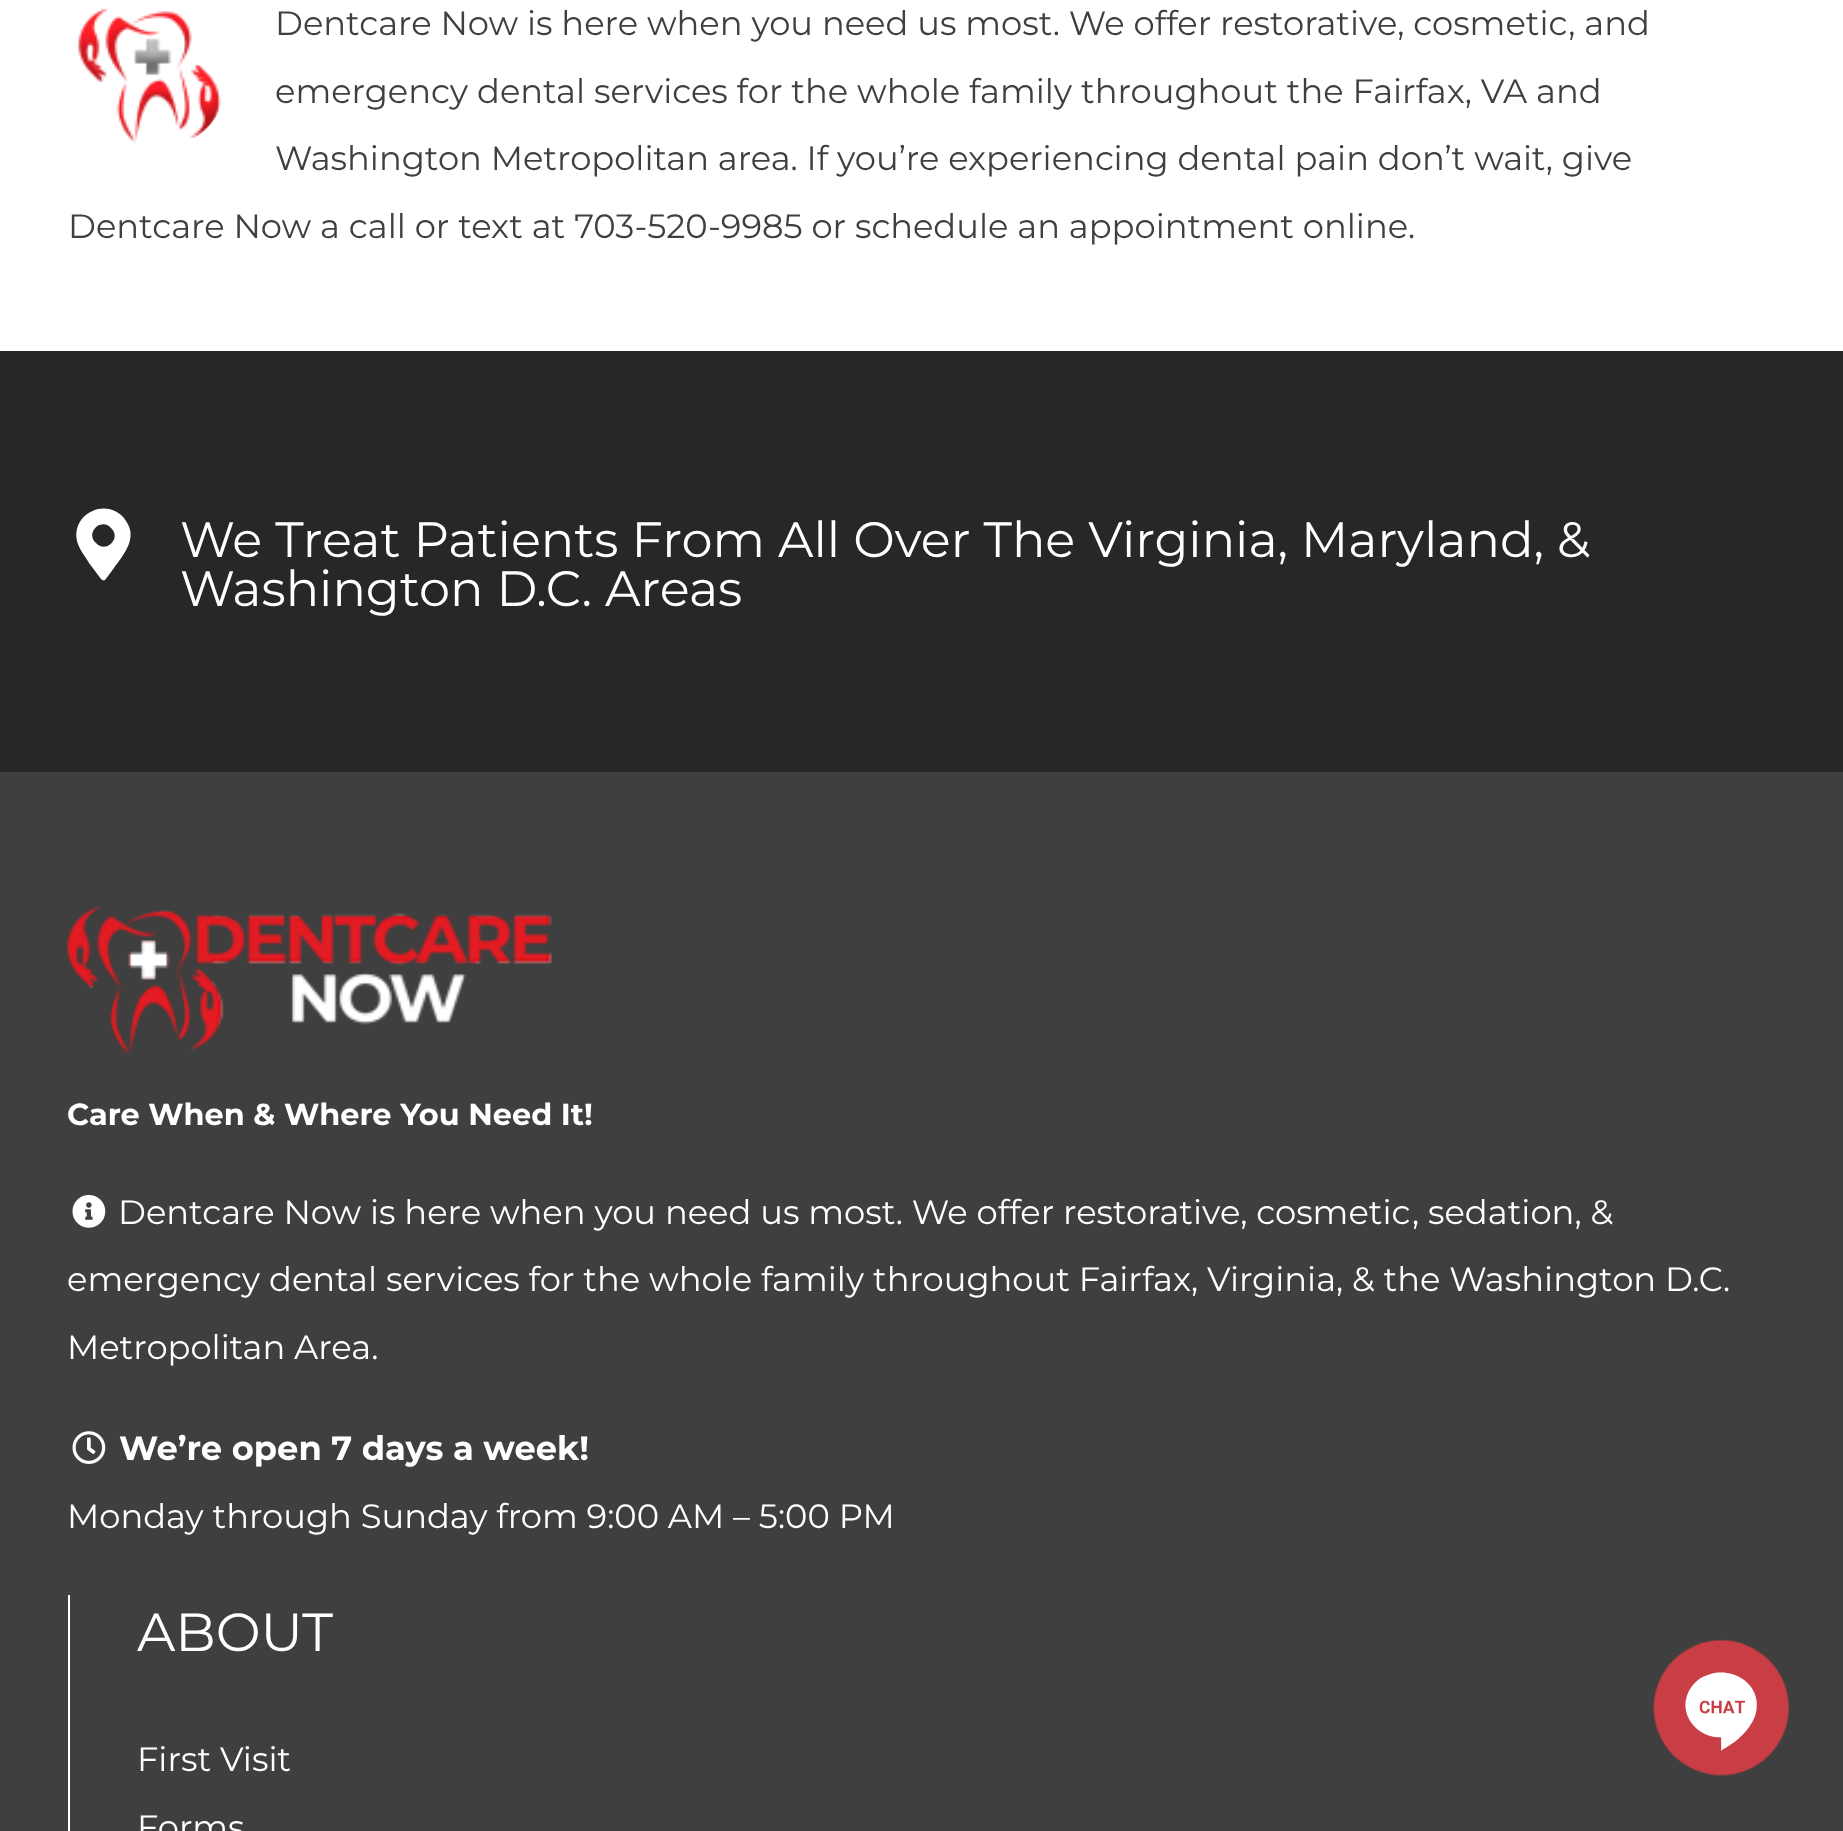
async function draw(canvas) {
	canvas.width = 1843;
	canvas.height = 1831;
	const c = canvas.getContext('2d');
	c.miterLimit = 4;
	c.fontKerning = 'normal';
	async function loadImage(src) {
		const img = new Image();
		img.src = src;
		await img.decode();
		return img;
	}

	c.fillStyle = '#fff';
	c.fillRect(0, 0, 1843, 1831);
	c.drawImage(await loadImage('img1.png'), 78, 7, 143, 136);
	c.font = '33.75px Montserrat';
	c.fillStyle = '#3f3f3f';
	for (const [text, x, y] of [
		['Dentcare Now is here when you need us most. We offer restorative, cosmetic, and', 275, 35],
		['emergency dental services for the whole family throughout the Fairfax, VA and', 275, 103],
		['Washington Metropolitan area. If you’re experiencing dental pain don’t wait, give', 275, 170],
		['Dentcare Now a call or text at 703-520-9985 or schedule an appointment online.', 68, 238],
	]) {
		c.fillText(text, x, y);
	}
	c.fillStyle = '#272727';
	c.fillRect(0, 351, 1843, 421);
	c.fillStyle = '#fff';
	c.beginPath();
	c.moveTo(101, 579);
	c.lineTo(89, 563);
	c.bezierCurveTo(85, 556, 79, 549, 77, 541);
	c.bezierCurveTo(71, 512, 110, 496, 126, 521);
	c.bezierCurveTo(138, 538, 124, 554, 114, 568);
	c.lineTo(105, 580);
	c.bezierCurveTo(104, 581, 102, 580, 101, 579);
	c.closePath();
	c.moveTo(96, 543);
	c.bezierCurveTo(106, 554, 122, 538, 111, 528);
	c.bezierCurveTo(101, 517, 85, 533, 96, 543);
	c.closePath();
	c.fill();
	c.font = '49.5px Montserrat';
	c.fillText('We Treat Patients From All Over The Virginia, Maryland, &', 180, 557);
	c.fillText('Washington D.C. Areas', 180, 606);
	c.fillStyle = '#3f3f3f';
	c.fillRect(0, 772, 1843, 1059);
	c.drawImage(await loadImage('img2.png'), 67, 907, 485, 147);
	c.font = 'bold 30.4px Montserrat';
	c.fillStyle = '#fff';
	c.fillText('Care When & Where You Need It!', 67, 1125);
	c.drawImage(await loadImage('img3.png'), 72, 1195, 34, 33);
	c.font = '33.75px Montserrat';
	for (const [text, x, y] of [
		['Dentcare Now is here when you need us most. We offer restorative, cosmetic', 118, 1224],
		[', sedation, &', 1412, 1224],
		['emergency dental services for the whole family throughout Fairfax, Virginia, & the Washington D.C.', 67, 1291],
		['Metropolitan Area.', 67, 1359],
	]) {
		c.fillText(text, x, y);
	}
	c.drawImage(await loadImage('img4.png'), 72, 1431, 34, 33);
	c.font = 'bold 33.75px Montserrat';
	c.fillText('We’re open 7 days a week!', 119, 1460);
	c.font = '33.75px Montserrat';
	c.fillText('Monday through Sunday from 9:00 AM – 5:00 PM', 67, 1528);
	c.fillRect(68, 1595, 2, 236);
	c.font = '53.5px Montserrat';
	c.fillText('ABOUT', 137, 1651);
	c.font = '33.75px Montserrat';
	c.fillText('First Visit', 137, 1771);
	c.fillText('Forms', 137, 1839);
	c.drawImage(await loadImage('img5.png'), 1653, 1639, 137, 137);
}

draw(document.querySelector('canvas'));
